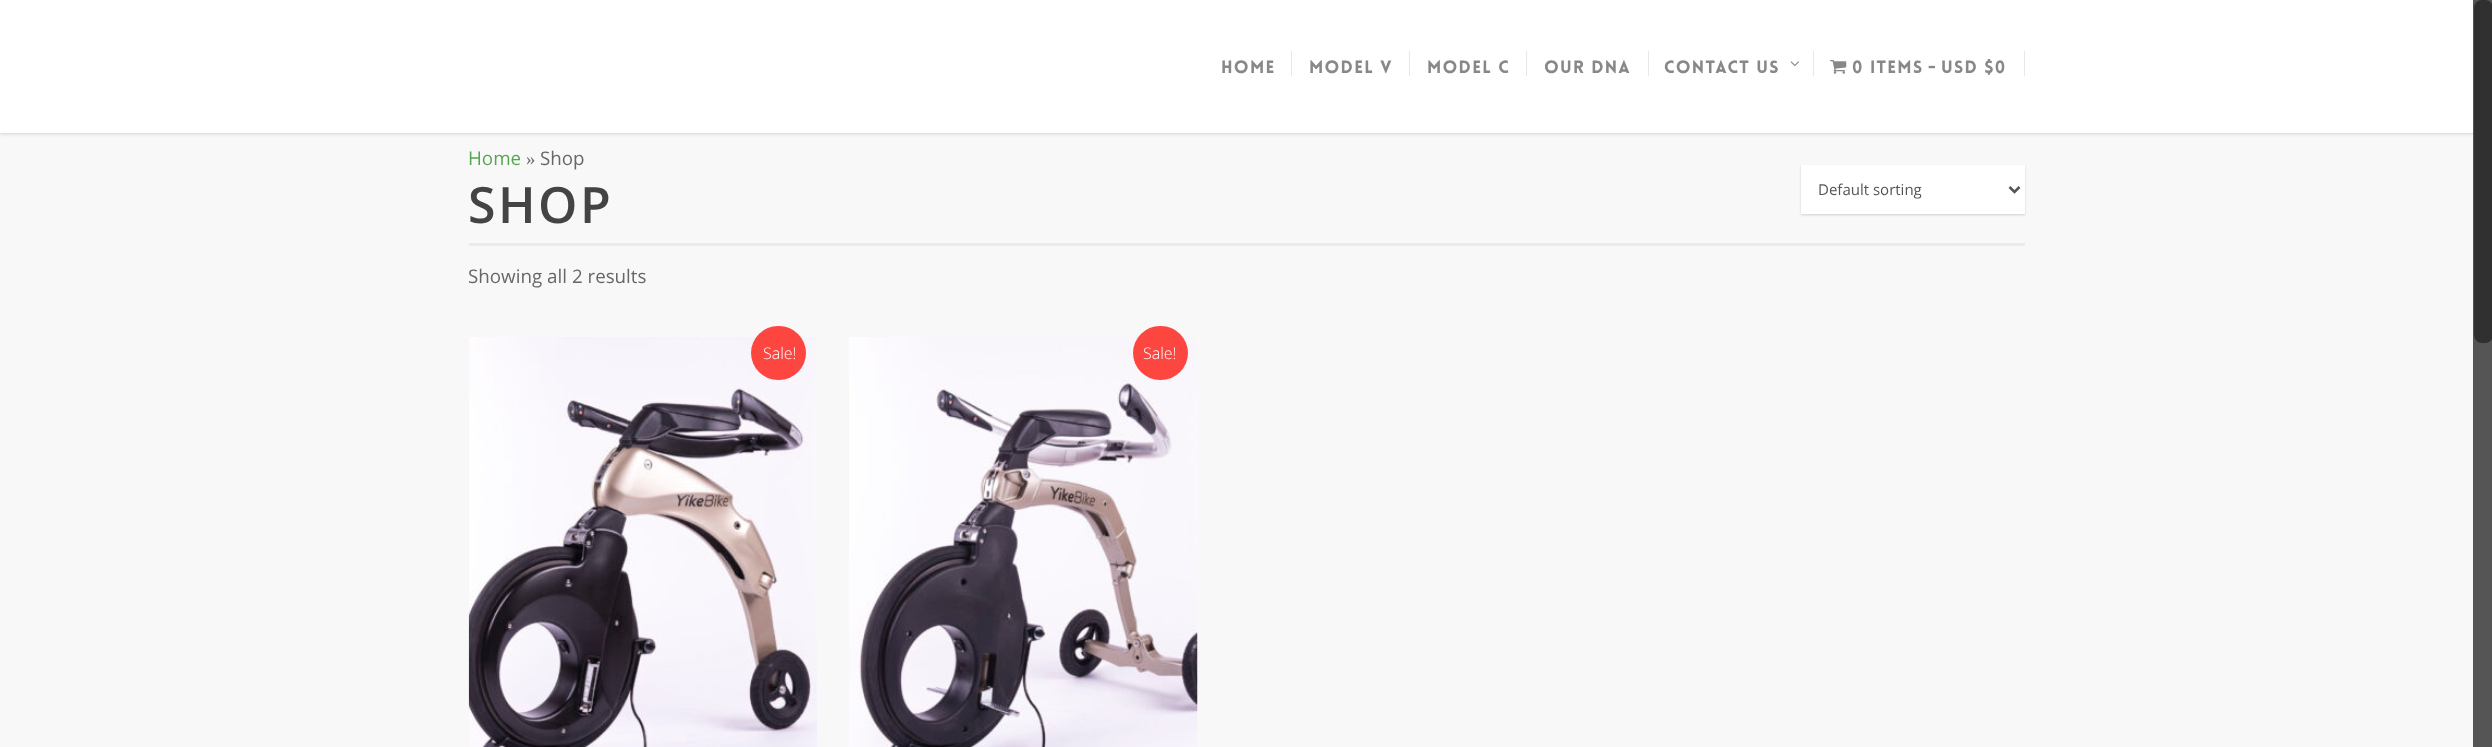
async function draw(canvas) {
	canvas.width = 2492;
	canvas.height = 747;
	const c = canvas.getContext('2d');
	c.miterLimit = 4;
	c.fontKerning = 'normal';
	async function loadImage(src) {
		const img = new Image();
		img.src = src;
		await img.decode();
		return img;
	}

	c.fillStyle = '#f8f8f8';
	c.fillRect(0, 0, 2492, 747);
	c.fillStyle = '#00000038';
	c.filter = 'blur(2px)';
	c.beginPath();
	c.rect(0, 0, 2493, 133);
	c.fill();
	c.filter = 'none';
	c.fillStyle = '#fff';
	c.fillRect(0, 0, 2473, 133);
	c.letterSpacing = '1.25px';
	c.font = '900 17.5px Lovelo';
	c.fillStyle = '#888';
	c.fillText('HOME', 1221, 73);
	c.fillStyle = '#e7e7e7';
	c.fillRect(1291, 51, 1, 25);
	c.fillStyle = '#888';
	c.fillText('MODEL V', 1309, 73);
	c.fillStyle = '#e7e7e7';
	c.fillRect(1409, 51, 1, 25);
	c.fillStyle = '#888';
	c.fillText('MODEL C', 1427, 73);
	c.fillStyle = '#e7e7e7';
	c.fillRect(1526, 51, 1, 25);
	c.fillStyle = '#888';
	c.fillText('OUR DNA', 1544, 73);
	c.fillStyle = '#e7e7e7';
	c.fillRect(1648, 51, 1, 25);
	c.fillStyle = '#888';
	c.fillText('CONTACT US', 1664, 73);
	c.drawImage(await loadImage('img1.png'), 1790, 61, 9, 6);
	c.fillStyle = '#e7e7e7';
	c.fillRect(1813, 51, 1, 25);
	c.drawImage(await loadImage('img2.png'), 1830, 60, 17, 14);
	c.fillStyle = '#888';
	for (const [text, x, y] of [
		['0 ITEMS', 1852, 73],
		['-', 1928, 73],
		['USD $0', 1941, 73],
	]) {
		c.fillText(text, x, y);
	}
	c.fillStyle = '#e7e7e7';
	c.fillRect(2024, 51, 1, 25);
	c.fillStyle = '#555';
	c.fillRect(2473, 0, 19, 747);
	c.fillStyle = '#303030';
	c.beginPath();
	c.roundRect(2474, 0, 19, 343, 8);
	c.fill();
	c.letterSpacing = '0px';
	c.font = '18.75px Open Sans';
	c.fillStyle = '#56a64f';
	c.fillText('Home', 468, 165);
	c.font = '18.75px Liberation Serif';
	c.fillStyle = '#676767';
	c.fillText('»', 526, 165);
	c.font = '18.75px Open Sans';
	c.fillText('Shop', 540, 165);
	c.letterSpacing = '2.5px';
	c.font = '600 50px Open Sans';
	c.fillStyle = '#444';
	c.fillText('SHOP', 468, 223);
	c.fillStyle = '#00000029';
	c.filter = 'blur(1px)';
	c.beginPath();
	c.rect(1801, 166, 224, 49);
	c.fill();
	c.filter = 'none';
	c.fillStyle = '#fff';
	c.fillRect(1801, 165, 224, 49);
	c.beginPath();
	c.moveTo(2009.5, 187);
	c.lineTo(2014.5, 192);
	c.lineTo(2019.5, 187);
	c.strokeStyle = '#555';
	c.lineWidth = 2.5;
	c.stroke();
	c.letterSpacing = '0px';
	c.font = '15px Open Sans';
	c.fillStyle = '#555';
	c.fillText('Default sorting', 1818, 195);
	c.fillStyle = '#ebebeb';
	c.fillRect(469, 243, 1556, 3);
	c.font = '18.75px Open Sans';
	c.fillStyle = '#676767';
	c.fillText('Showing all 2 results', 468, 283);
	c.drawImage(await loadImage('img3.png'), 468, 337, 349, 410);
	c.fillStyle = '#fe4641';
	c.beginPath();
	c.roundRect(751, 326, 55, 54, 27);
	c.fill();
	c.font = '300 16px Open Sans';
	c.fillStyle = '#fff';
	c.fillText('Sale!', 763, 359);
	c.drawImage(await loadImage('img4.png'), 849, 337, 349, 410);
	c.fillStyle = '#fe4641';
	c.beginPath();
	c.roundRect(1133, 326, 55, 54, 27);
	c.fill();
	c.fillStyle = '#fff';
	c.fillText('Sale!', 1143, 359);
}

draw(document.querySelector('canvas'));
